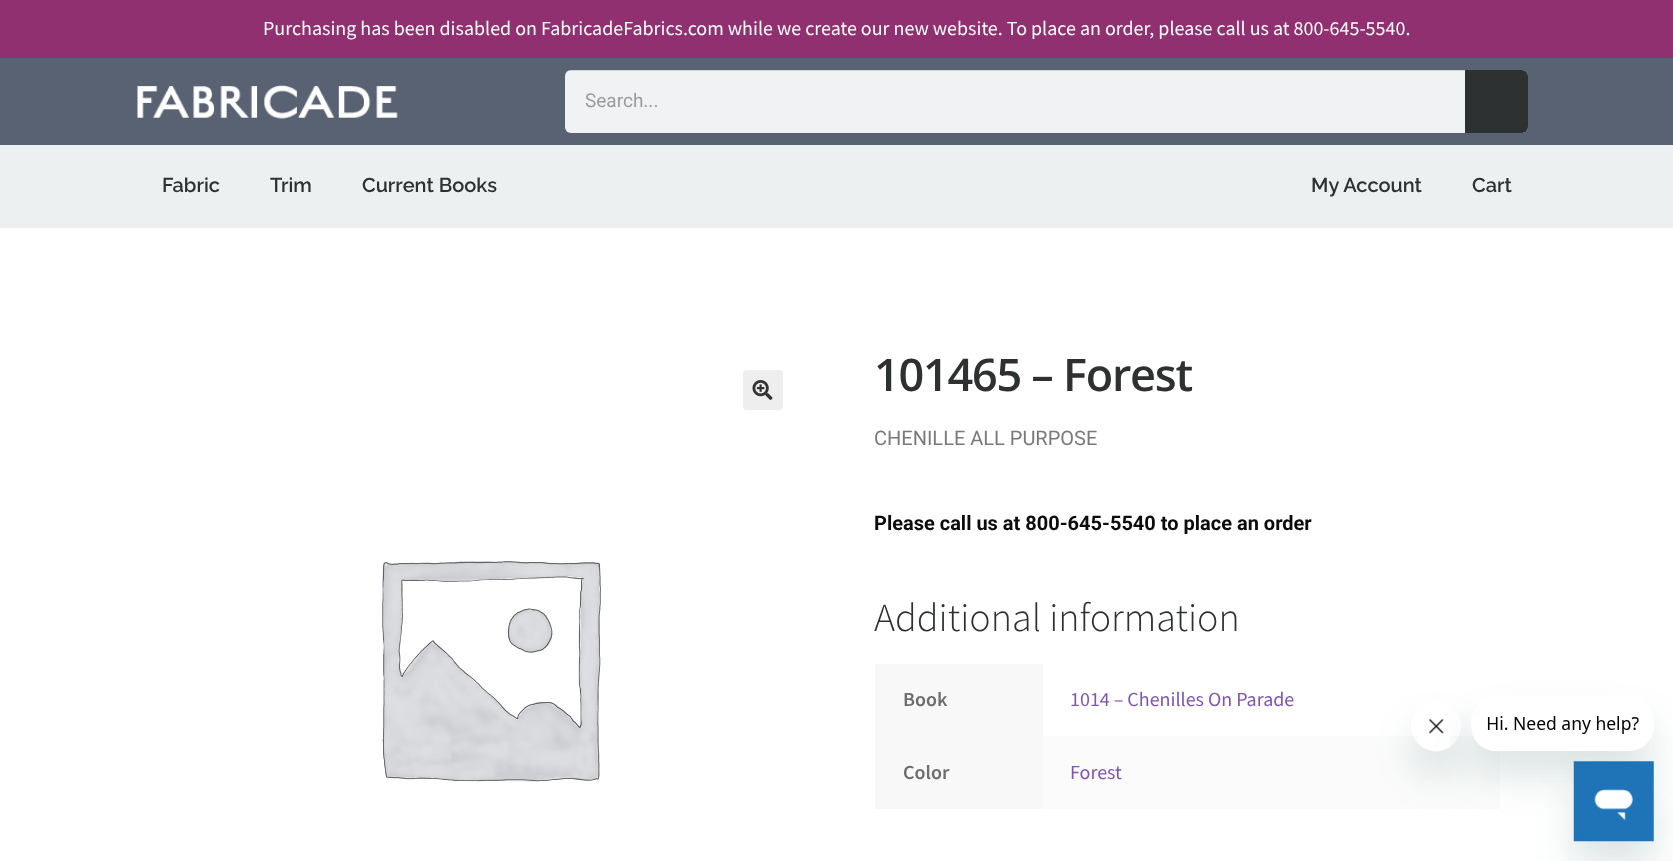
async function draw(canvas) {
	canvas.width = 1673;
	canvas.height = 861;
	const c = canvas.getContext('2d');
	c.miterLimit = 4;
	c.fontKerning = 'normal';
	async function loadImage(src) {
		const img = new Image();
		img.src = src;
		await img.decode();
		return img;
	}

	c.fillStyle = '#fff';
	c.fillRect(0, 0, 1673, 861);
	c.fillStyle = '#913070';
	c.fillRect(0, 0, 1673, 58);
	c.font = '20px Source Sans Pro';
	c.fillStyle = '#fff';
	c.fillText('Purchasing has been disabled on FabricadeFabrics.com while we create our new website. To place an order, please call us at 800-645-5540.', 263, 35);
	c.fillStyle = '#596273';
	c.fillRect(0, 58, 1673, 87);
	c.drawImage(await loadImage('img1.png'), 137, 85, 261, 34);
	c.fillStyle = '#f1f2f3';
	c.beginPath();
	c.roundRect(565, 70, 963, 63, 6);
	c.fill();
	c.save();
	c.beginPath();
	c.roundRect(565, 70, 963, 63, 6);
	c.clip();
	c.fillStyle = '#0000001f';
	c.fillRect(565, 70, 900, 1);
	c.restore();
	c.font = '19px Roboto';
	c.fillStyle = '#9b9b9b';
	c.fillText('Search...', 585, 107);
	c.fillStyle = '#2e3131';
	c.beginPath();
	c.roundRect(1465, 70, 63, 63, [0, 6, 6, 0]);
	c.fill();
	c.fillStyle = '#ecf0f1';
	c.fillRect(0, 145, 1673, 83);
	c.font = '600 20px Raleway';
	c.fillStyle = '#2e3131';
	for (const [text, x, y] of [
		['Fabric', 162, 192],
		['Trim', 270, 192],
		['Current Books', 362, 192],
		['My Account', 1311, 192],
		['Cart', 1472, 192],
	]) {
		c.fillText(text, x, y);
	}
	c.fillStyle = '#eee';
	c.beginPath();
	c.roundRect(743, 370, 40, 40, 4);
	c.fill();
	c.drawImage(await loadImage('img2.png'), 752, 380, 21, 20);
	c.drawImage(await loadImage('img3.png'), 382, 561, 219, 221);
	c.letterSpacing = '-1.25px';
	c.font = '600 45px Open Sans';
	c.fillStyle = '#2e3131';
	c.fillText('101465 – Forest', 874, 391);
	c.letterSpacing = '0px';
	c.font = '20px Roboto';
	c.fillStyle = '#7a7a7a';
	c.fillText('CHENILLE ALL PURPOSE', 874, 445);
	c.font = 'bold 20px Roboto';
	c.fillStyle = '#0c0c0c';
	c.fillText('Please call us at 800-645-5540 to place an order', 874, 530);
	c.font = '300 40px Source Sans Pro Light';
	c.fillStyle = '#2e3131';
	c.fillText('Additional information', 874, 631);
	c.fillStyle = '#f8f8f8';
	c.fillRect(875, 664, 168, 145);
	c.font = '600 20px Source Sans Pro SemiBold';
	c.fillStyle = '#6d6d6d';
	c.fillText('Book', 903, 706);
	c.font = '20px Source Sans Pro';
	c.fillStyle = '#7f54b3';
	c.fillText('1014 – Chenilles On Parade', 1070, 706);
	c.font = '600 20px Source Sans Pro SemiBold';
	c.fillStyle = '#6d6d6d';
	c.fillText('Color', 903, 779);
	c.fillStyle = '#fbfbfb';
	c.fillRect(1043, 736, 457, 73);
	c.font = '20px Source Sans Pro';
	c.fillStyle = '#7f54b3';
	c.fillText('Forest', 1070, 779);
	c.save();
	c.beginPath();
	c.moveTo(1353, 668);
	c.lineTo(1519, 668);
	c.lineTo(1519, 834);
	c.lineTo(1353, 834);
	c.closePath();
	c.moveTo(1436, 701);
	c.bezierCurveTo(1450, 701, 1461, 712, 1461, 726);
	c.bezierCurveTo(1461, 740, 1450, 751, 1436, 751);
	c.bezierCurveTo(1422, 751, 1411, 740, 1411, 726);
	c.bezierCurveTo(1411, 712, 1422, 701, 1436, 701);
	c.closePath();
	c.clip('evenodd');
	c.fillStyle = '#17494d26';
	c.filter = 'blur(19px)';
	c.beginPath();
	c.roundRect(1411, 726, 50, 50, 25);
	c.fill();
	c.filter = 'none';
	c.restore();
	c.drawImage(await loadImage('img5.png'), 1418, 719, 32, 33);
	c.save();
	c.beginPath();
	c.moveTo(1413, 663);
	c.lineTo(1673, 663);
	c.lineTo(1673, 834);
	c.lineTo(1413, 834);
	c.closePath();
	c.moveTo(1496, 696);
	c.lineTo(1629, 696);
	c.bezierCurveTo(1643, 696, 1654, 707, 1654, 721);
	c.lineTo(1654, 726);
	c.bezierCurveTo(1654, 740, 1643, 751, 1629, 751);
	c.lineTo(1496, 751);
	c.bezierCurveTo(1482, 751, 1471, 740, 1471, 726);
	c.lineTo(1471, 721);
	c.bezierCurveTo(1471, 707, 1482, 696, 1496, 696);
	c.closePath();
	c.clip('evenodd');
	c.fillStyle = '#17494d26';
	c.filter = 'blur(19px)';
	c.beginPath();
	c.roundRect(1471, 721, 183, 55, 25);
	c.fill();
	c.filter = 'none';
	c.restore();
	c.drawImage(await loadImage('img4.png'), 1472, 716, 167, 35);
	c.fillStyle = '#17494d26';
	c.filter = 'blur(19px)';
	c.beginPath();
	c.rect(1574, 786, 80, 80);
	c.fill();
	c.filter = 'none';
	c.drawImage(await loadImage('img6.png'), 1573, 761, 81, 81);
}

draw(document.querySelector('canvas'));
